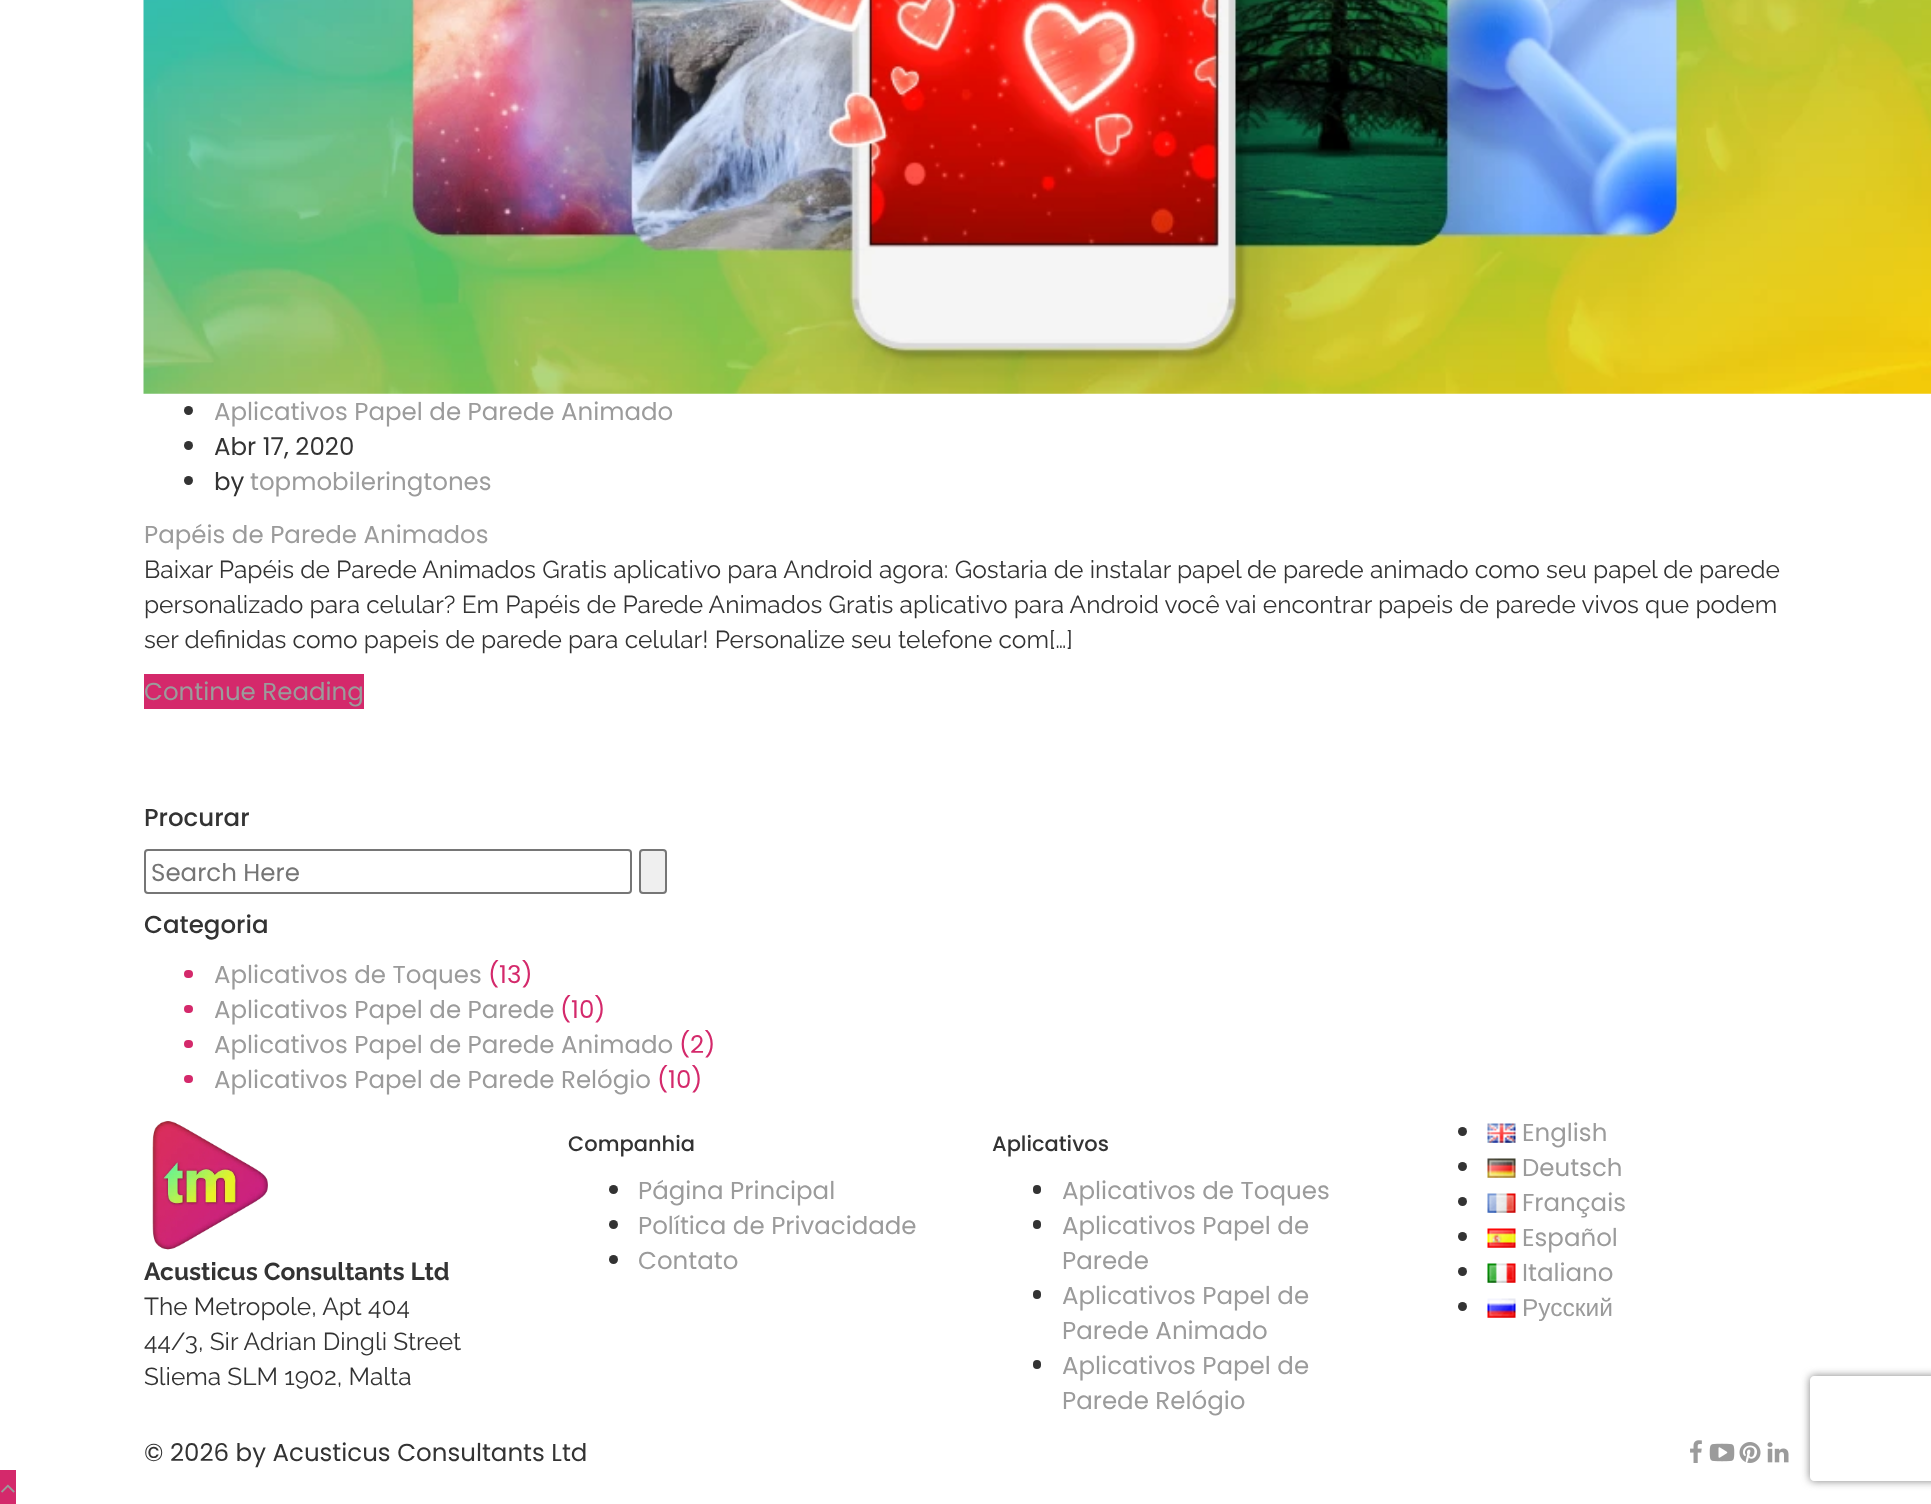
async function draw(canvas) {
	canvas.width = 1931;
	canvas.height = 1504;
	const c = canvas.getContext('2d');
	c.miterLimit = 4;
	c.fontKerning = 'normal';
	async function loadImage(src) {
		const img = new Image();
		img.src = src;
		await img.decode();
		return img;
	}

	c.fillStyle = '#fff';
	c.fillRect(0, 0, 1931, 1504);
	c.drawImage(await loadImage('img1.png'), 143, 0, 1788, 394);
	c.fillStyle = '#333';
	c.beginPath();
	c.arc(188.5, 410.5, 4.5, 0, 2 * Math.PI);
	c.fill();
	c.font = '24.5px Poppins';
	c.fillStyle = '#9b9b9b';
	c.fillText('Aplicativos Papel de Parede Animado', 214, 420);
	c.fillStyle = '#333';
	c.beginPath();
	c.arc(188.5, 445.5, 4.5, 0, 2 * Math.PI);
	c.fill();
	c.fillText('Abr 17, 2020', 214, 455);
	c.beginPath();
	c.arc(188.5, 480.5, 4.5, 0, 2 * Math.PI);
	c.fill();
	c.fillText('by', 214, 490);
	c.fillStyle = '#9b9b9b';
	c.fillText('topmobileringtones', 250, 490);
	c.fillText('Papéis de Parede Animados', 144, 543);
	c.font = '24.5px Raleway';
	c.fillStyle = '#333';
	for (const [text, x, y] of [
		['Baixar Papéis de Parede Animados Gratis aplicativo para Android agora: Gostaria de instalar papel de parede animado como seu papel de parede', 144, 578],
		['personalizado para celular? Em Papéis de Parede Animados Gratis aplicativo para Android você vai encontrar papeis de parede vivos que podem', 144, 613],
		['ser definidas como papeis de parede para celular! Personalize seu telefone com[…]', 144, 648],
	]) {
		c.fillText(text, x, y);
	}
	c.fillStyle = '#d4296b';
	c.fillRect(144, 674, 220, 35);
	c.font = '24.5px Poppins';
	c.fillStyle = '#9b9b9b';
	c.fillText('Continue Reading', 144, 700);
	c.font = '500 24.5px Poppins';
	c.fillStyle = '#333';
	c.fillText('Procurar', 144, 826);
	c.beginPath();
	c.roundRect(145, 850, 486, 43, 3);
	c.strokeStyle = '#767676';
	c.lineWidth = 2;
	c.stroke();
	c.font = '24.5px Poppins';
	c.fillStyle = '#757575';
	c.fillText('Search Here', 151, 881);
	c.fillStyle = '#efefef';
	c.beginPath();
	c.roundRect(640, 850, 26, 43, 3);
	c.fill();
	c.stroke();
	c.font = '500 24.5px Poppins';
	c.fillStyle = '#333';
	c.fillText('Categoria', 144, 933);
	c.fillStyle = '#d4296b';
	c.beginPath();
	c.roundRect(184, 970, 9, 8, 4);
	c.fill();
	c.font = '24.5px Poppins';
	c.fillStyle = '#9b9b9b';
	c.fillText('Aplicativos de Toques', 214, 983);
	c.fillStyle = '#d4296b';
	c.fillText('(13)', 488, 983);
	c.beginPath();
	c.roundRect(184, 1005, 9, 8, 4);
	c.fill();
	c.fillStyle = '#9b9b9b';
	c.fillText('Aplicativos Papel de Parede', 214, 1018);
	c.fillStyle = '#d4296b';
	c.fillText('(10)', 560, 1018);
	c.beginPath();
	c.roundRect(184, 1040, 9, 8, 4);
	c.fill();
	c.fillStyle = '#9b9b9b';
	c.fillText('Aplicativos Papel de Parede Animado', 214, 1053);
	c.fillStyle = '#d4296b';
	c.fillText('(2)', 679, 1053);
	c.beginPath();
	c.roundRect(184, 1075, 9, 8, 4);
	c.fill();
	c.fillStyle = '#9b9b9b';
	c.fillText('Aplicativos Papel de Parede Relógio', 214, 1088);
	c.fillStyle = '#d4296b';
	c.fillText('(10)', 657, 1088);
	c.fillRect(0, 1470, 16, 34);
	c.drawImage(await loadImage('img2.png'), 1, 1484, 14, 9);
	c.drawImage(await loadImage('img3.png'), 152, 1121, 116, 129);
	c.font = 'bold 24.5px Raleway';
	c.fillStyle = '#333';
	c.fillText('Acusticus Consultants Ltd', 144, 1280);
	c.font = '24.5px Raleway';
	for (const [text, x, y] of [
		['The Metropole, Apt 404', 144, 1315],
		['44/3, Sir Adrian Dingli Street', 144, 1350],
		['Sliema SLM 1902, Malta', 144, 1385],
	]) {
		c.fillText(text, x, y);
	}
	c.font = '500 21px Poppins';
	c.fillText('Companhia', 568, 1151);
	c.beginPath();
	c.arc(613.5, 1189.5, 4.5, 0, 2 * Math.PI);
	c.fill();
	c.font = '24.5px Poppins';
	c.fillStyle = '#9b9b9b';
	c.fillText('Página Principal', 638, 1199);
	c.fillStyle = '#333';
	c.beginPath();
	c.arc(613.5, 1224.5, 4.5, 0, 2 * Math.PI);
	c.fill();
	c.fillStyle = '#9b9b9b';
	c.fillText('Política de Privacidade', 638, 1234);
	c.fillStyle = '#333';
	c.beginPath();
	c.arc(613.5, 1259.5, 4.5, 0, 2 * Math.PI);
	c.fill();
	c.fillStyle = '#9b9b9b';
	c.fillText('Contato', 638, 1269);
	c.font = '500 21px Poppins';
	c.fillStyle = '#333';
	c.fillText('Aplicativos', 992, 1151);
	c.beginPath();
	c.roundRect(1033, 1185, 8, 9, 4);
	c.fill();
	c.font = '24.5px Poppins';
	c.fillStyle = '#9b9b9b';
	c.fillText('Aplicativos de Toques', 1062, 1199);
	c.fillStyle = '#333';
	c.beginPath();
	c.roundRect(1033, 1220, 8, 9, 4);
	c.fill();
	c.fillStyle = '#9b9b9b';
	c.fillText('Aplicativos Papel de', 1062, 1234);
	c.fillText('Parede', 1062, 1269);
	c.fillStyle = '#333';
	c.beginPath();
	c.roundRect(1033, 1290, 8, 9, 4);
	c.fill();
	c.fillStyle = '#9b9b9b';
	c.fillText('Aplicativos Papel de', 1062, 1304);
	c.fillText('Parede Animado', 1062, 1339);
	c.fillStyle = '#333';
	c.beginPath();
	c.roundRect(1033, 1360, 8, 9, 4);
	c.fill();
	c.fillStyle = '#9b9b9b';
	c.fillText('Aplicativos Papel de', 1062, 1374);
	c.fillText('Parede Relógio', 1062, 1409);
	c.fillStyle = '#333';
	c.beginPath();
	c.arc(1462.5, 1131.5, 4.5, 0, 2 * Math.PI);
	c.fill();
	c.drawImage(await loadImage('img4.png'), 1487, 1123, 29, 20);
	c.fillStyle = '#9b9b9b';
	c.fillText('English', 1522, 1141);
	c.fillStyle = '#333';
	c.beginPath();
	c.arc(1462.5, 1166.5, 4.5, 0, 2 * Math.PI);
	c.fill();
	c.drawImage(await loadImage('img5.png'), 1487, 1158, 29, 20);
	c.fillStyle = '#9b9b9b';
	c.fillText('Deutsch', 1522, 1176);
	c.fillStyle = '#333';
	c.beginPath();
	c.arc(1462.5, 1201.5, 4.5, 0, 2 * Math.PI);
	c.fill();
	c.drawImage(await loadImage('img6.png'), 1487, 1193, 29, 20);
	c.fillStyle = '#9b9b9b';
	c.fillText('Français', 1522, 1211);
	c.fillStyle = '#333';
	c.beginPath();
	c.arc(1462.5, 1236.5, 4.5, 0, 2 * Math.PI);
	c.fill();
	c.drawImage(await loadImage('img7.png'), 1487, 1228, 29, 20);
	c.fillStyle = '#9b9b9b';
	c.fillText('Español', 1522, 1246);
	c.fillStyle = '#333';
	c.beginPath();
	c.arc(1462.5, 1271.5, 4.5, 0, 2 * Math.PI);
	c.fill();
	c.drawImage(await loadImage('img8.png'), 1487, 1263, 29, 20);
	c.fillStyle = '#9b9b9b';
	c.fillText('Italiano', 1522, 1281);
	c.fillStyle = '#333';
	c.beginPath();
	c.arc(1462.5, 1306.5, 4.5, 0, 2 * Math.PI);
	c.fill();
	c.drawImage(await loadImage('img9.png'), 1487, 1298, 29, 20);
	c.font = '24.5px Liberation Sans';
	c.fillStyle = '#9b9b9b';
	c.fillText('Русский', 1522, 1316);
	c.font = '24.5px Poppins';
	c.fillStyle = '#333';
	c.fillText('© 2026 by Acusticus Consultants Ltd', 144, 1461);
	c.drawImage(await loadImage('img10.png'), 1690, 1440, 12, 23);
	c.drawImage(await loadImage('img11.png'), 1709, 1443, 26, 19);
	c.drawImage(await loadImage('img12.png'), 1739, 1442, 22, 21);
	c.drawImage(await loadImage('img13.png'), 1767, 1442, 22, 21);
	c.save();
	c.beginPath();
	c.moveTo(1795, 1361);
	c.lineTo(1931, 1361);
	c.lineTo(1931, 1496);
	c.lineTo(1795, 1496);
	c.closePath();
	c.moveTo(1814, 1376);
	c.lineTo(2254, 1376);
	c.bezierCurveTo(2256, 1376, 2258, 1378, 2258, 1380);
	c.lineTo(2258, 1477);
	c.bezierCurveTo(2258, 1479, 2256, 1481, 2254, 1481);
	c.lineTo(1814, 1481);
	c.bezierCurveTo(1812, 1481, 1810, 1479, 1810, 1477);
	c.lineTo(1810, 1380);
	c.bezierCurveTo(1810, 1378, 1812, 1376, 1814, 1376);
	c.closePath();
	c.clip('evenodd');
	c.fillStyle = '#808080';
	c.filter = 'blur(4.5px)';
	c.beginPath();
	c.roundRect(1810, 1376, 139, 105, 4);
	c.fill();
	c.filter = 'none';
	c.restore();
}

draw(document.querySelector('canvas'));
